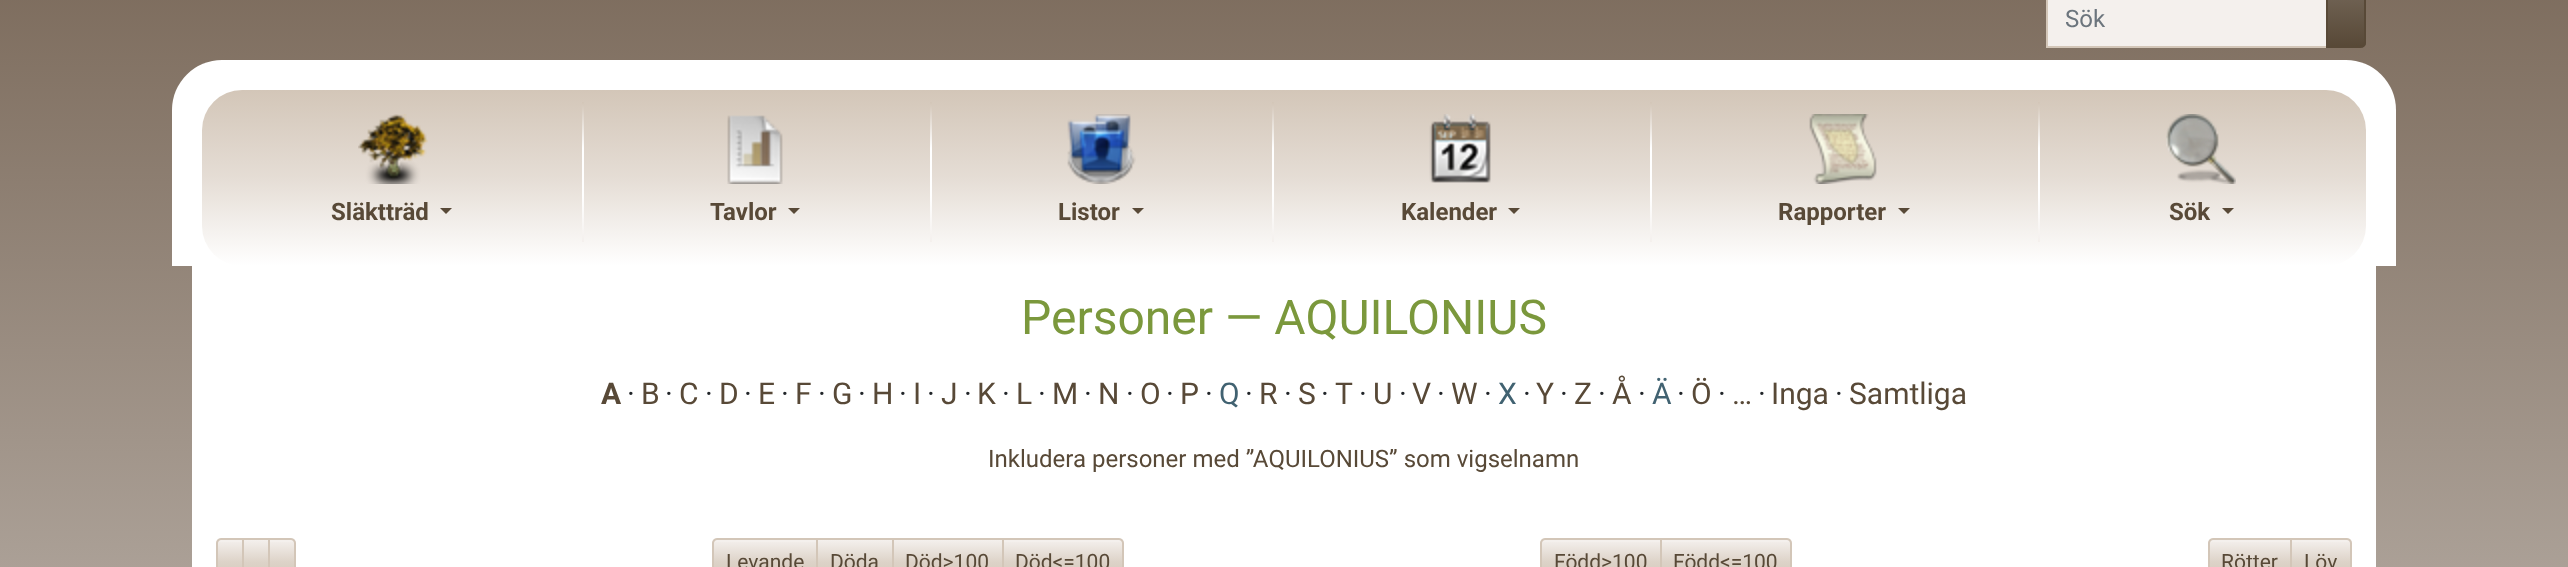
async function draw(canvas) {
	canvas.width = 2568;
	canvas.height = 567;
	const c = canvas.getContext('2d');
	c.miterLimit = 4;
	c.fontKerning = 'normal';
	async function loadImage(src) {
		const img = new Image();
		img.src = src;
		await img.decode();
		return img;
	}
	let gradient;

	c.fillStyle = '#fff';
	c.fillRect(0, 0, 2568, 567);
	gradient = c.createLinearGradient(1284, 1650, 1284, -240);
	gradient.addColorStop(0, '#fff');
	gradient.addColorStop(1, '#6c5948');
	c.fillStyle = gradient;
	c.fillRect(0, 0, 2568, 567);
	c.fillStyle = '#f4f0ed';
	c.beginPath();
	c.rect(2047, -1, 280, 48);
	c.fill();
	c.strokeStyle = '#d3c6b8';
	c.lineWidth = 2;
	c.stroke();
	c.font = '24px Roboto';
	c.fillStyle = '#6c757d';
	c.fillText('Sök', 2065, 27);
	c.save();
	c.beginPath();
	c.moveTo(2326, -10);
	c.lineTo(2360, -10);
	c.bezierCurveTo(2363.5, -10, 2366, -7.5, 2366, -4);
	c.lineTo(2366, 42);
	c.bezierCurveTo(2366, 45.5, 2363.5, 48, 2360, 48);
	c.lineTo(2326, 48);
	c.closePath();
	c.clip();
	gradient = c.createLinearGradient(2346, -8, 2346, 46);
	gradient.addColorStop(0, '#716455');
	gradient.addColorStop(1, '#584937');
	c.fillStyle = gradient;
	c.fillRect(2328, 0, 38, 46);
	c.restore();
	c.beginPath();
	c.moveTo(2327, -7);
	c.lineTo(2360, -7);
	c.bezierCurveTo(2363, -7, 2365, -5, 2365, -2);
	c.lineTo(2365, 42);
	c.bezierCurveTo(2365, 45, 2363, 47, 2360, 47);
	c.lineTo(2327, 47);
	c.closePath();
	c.strokeStyle = '#584937';
	c.stroke();
	c.fillStyle = '#fff';
	c.beginPath();
	c.roundRect(172, 60, 2224, 206, [50, 50, 0, 0]);
	c.fill();
	gradient = c.createLinearGradient(1284, 266, 1284, 90);
	gradient.addColorStop(0, '#fff');
	gradient.addColorStop(0.5, '#e5ddd5');
	gradient.addColorStop(1, '#d3c6b8');
	c.fillStyle = gradient;
	c.beginPath();
	c.roundRect(202, 90, 2164, 176, 40);
	c.fill();
	c.drawImage(await loadImage('img1.png'), 358, 114, 70, 70);
	c.font = 'bold 24px Roboto';
	c.fillStyle = '#584937';
	c.fillText('Släktträd', 331, 220);
	c.beginPath();
	c.moveTo(440, 208);
	c.lineTo(452, 208);
	c.lineTo(446, 214);
	c.closePath();
	c.fill();
	gradient = c.createLinearGradient(583, 242, 583, 102);
	gradient.addColorStop(0, '#f4f0ed');
	gradient.addColorStop(0.33, '#fff');
	gradient.addColorStop(0.67, '#fff');
	gradient.addColorStop(1, '#d3c6b8');
	c.fillStyle = gradient;
	c.fillRect(582, 102, 2, 140);
	c.drawImage(await loadImage('img2.png'), 727, 115, 56, 69);
	c.fillStyle = '#584937';
	c.fillText('Tavlor', 710, 220);
	c.beginPath();
	c.moveTo(788, 208);
	c.lineTo(800, 208);
	c.lineTo(794, 214);
	c.closePath();
	c.fill();
	gradient = c.createLinearGradient(931, 242, 931, 102);
	gradient.addColorStop(0, '#f4f0ed');
	gradient.addColorStop(0.33, '#fff');
	gradient.addColorStop(0.67, '#fff');
	gradient.addColorStop(1, '#d3c6b8');
	c.fillStyle = gradient;
	c.fillRect(930, 102, 2, 140);
	c.drawImage(await loadImage('img3.png'), 1067, 114, 69, 70);
	c.fillStyle = '#584937';
	c.fillText('Listor', 1058, 220);
	c.beginPath();
	c.moveTo(1132, 208);
	c.lineTo(1144, 208);
	c.lineTo(1138, 214);
	c.closePath();
	c.fill();
	gradient = c.createLinearGradient(1273, 242, 1273, 102);
	gradient.addColorStop(0, '#f4f0ed');
	gradient.addColorStop(0.33, '#fff');
	gradient.addColorStop(0.67, '#fff');
	gradient.addColorStop(1, '#d3c6b8');
	c.fillStyle = gradient;
	c.fillRect(1272, 102, 2, 140);
	c.drawImage(await loadImage('img4.png'), 1429, 114, 62, 69);
	c.fillStyle = '#584937';
	c.fillText('Kalender', 1401, 220);
	c.beginPath();
	c.moveTo(1508, 208);
	c.lineTo(1520, 208);
	c.lineTo(1514, 214);
	c.closePath();
	c.fill();
	gradient = c.createLinearGradient(1651, 242, 1651, 102);
	gradient.addColorStop(0, '#f4f0ed');
	gradient.addColorStop(0.33, '#fff');
	gradient.addColorStop(0.67, '#fff');
	gradient.addColorStop(1, '#d3c6b8');
	c.fillStyle = gradient;
	c.fillRect(1650, 102, 2, 140);
	c.drawImage(await loadImage('img5.png'), 1809, 114, 68, 70);
	c.fillStyle = '#584937';
	c.fillText('Rapporter', 1778, 220);
	c.beginPath();
	c.moveTo(1898, 208);
	c.lineTo(1910, 208);
	c.lineTo(1904, 214);
	c.closePath();
	c.fill();
	gradient = c.createLinearGradient(2039, 242, 2039, 102);
	gradient.addColorStop(0, '#f4f0ed');
	gradient.addColorStop(0.33, '#fff');
	gradient.addColorStop(0.67, '#fff');
	gradient.addColorStop(1, '#d3c6b8');
	c.fillStyle = gradient;
	c.fillRect(2038, 102, 2, 140);
	c.drawImage(await loadImage('img6.png'), 2166, 114, 70, 70);
	c.fillStyle = '#584937';
	c.fillText('Sök', 2169, 220);
	c.beginPath();
	c.moveTo(2222, 208);
	c.lineTo(2234, 208);
	c.lineTo(2228, 214);
	c.closePath();
	c.fill();
	c.fillStyle = '#fff';
	c.fillRect(192, 266, 2184, 301);
	c.font = '48px Roboto';
	c.fillStyle = '#7b983c';
	c.fillText('Personer — AQUILONIUS', 1021, 334);
	c.font = 'bold 30px Roboto';
	c.fillStyle = '#584937';
	c.fillText('A', 601, 404);
	c.font = '30px Roboto';
	c.fillStyle = '#212529';
	c.fillText('·', 627, 404);
	c.fillStyle = '#584937';
	c.fillText('B', 641, 404);
	c.fillStyle = '#212529';
	c.fillText('·', 665, 404);
	c.fillStyle = '#584937';
	c.fillText('C', 679, 404);
	c.fillStyle = '#212529';
	c.fillText('·', 705, 404);
	c.fillStyle = '#584937';
	c.fillText('D', 719, 404);
	c.fillStyle = '#212529';
	c.fillText('·', 744, 404);
	c.fillStyle = '#584937';
	c.fillText('E', 758, 404);
	c.fillStyle = '#212529';
	c.fillText('·', 781, 404);
	c.fillStyle = '#584937';
	c.fillText('F', 795, 404);
	c.fillStyle = '#212529';
	c.fillText('·', 818, 404);
	c.fillStyle = '#584937';
	c.fillText('G', 832, 404);
	c.fillStyle = '#212529';
	c.fillText('·', 858, 404);
	c.fillStyle = '#584937';
	c.fillText('H', 872, 404);
	c.fillStyle = '#212529';
	c.fillText('·', 899, 404);
	c.fillStyle = '#584937';
	c.fillText('I', 913, 404);
	c.fillStyle = '#212529';
	c.fillText('·', 927, 404);
	c.fillStyle = '#584937';
	c.fillText('J', 941, 404);
	c.fillStyle = '#212529';
	c.fillText('·', 964, 404);
	c.fillStyle = '#584937';
	c.fillText('K', 977, 404);
	c.fillStyle = '#212529';
	c.fillText('·', 1002, 404);
	c.fillStyle = '#584937';
	c.fillText('L', 1016, 404);
	c.fillStyle = '#212529';
	c.fillText('·', 1038, 404);
	c.fillStyle = '#584937';
	c.fillText('M', 1052, 404);
	c.fillStyle = '#212529';
	c.fillText('·', 1084, 404);
	c.fillStyle = '#584937';
	c.fillText('N', 1098, 404);
	c.fillStyle = '#212529';
	c.fillText('·', 1126, 404);
	c.fillStyle = '#584937';
	c.fillText('O', 1140, 404);
	c.fillStyle = '#212529';
	c.fillText('·', 1166, 404);
	c.fillStyle = '#584937';
	c.fillText('P', 1180, 404);
	c.fillStyle = '#212529';
	c.fillText('·', 1205, 404);
	c.fillStyle = '#416271';
	c.fillText('Q', 1219, 404);
	c.fillStyle = '#212529';
	c.fillText('·', 1245, 404);
	c.fillStyle = '#584937';
	c.fillText('R', 1259, 404);
	c.fillStyle = '#212529';
	c.fillText('·', 1284, 404);
	c.fillStyle = '#584937';
	c.fillText('S', 1298, 404);
	c.fillStyle = '#212529';
	c.fillText('·', 1321, 404);
	c.fillStyle = '#584937';
	c.fillText('T', 1335, 404);
	c.fillStyle = '#212529';
	c.fillText('·', 1359, 404);
	c.fillStyle = '#584937';
	c.fillText('U', 1373, 404);
	c.fillStyle = '#212529';
	c.fillText('·', 1399, 404);
	c.fillStyle = '#584937';
	c.fillText('V', 1412, 404);
	c.fillStyle = '#212529';
	c.fillText('·', 1437, 404);
	c.fillStyle = '#584937';
	c.fillText('W', 1451, 404);
	c.fillStyle = '#212529';
	c.fillText('·', 1484, 404);
	c.fillStyle = '#416271';
	c.fillText('X', 1498, 404);
	c.fillStyle = '#212529';
	c.fillText('·', 1523, 404);
	c.fillStyle = '#584937';
	c.fillText('Y', 1536, 404);
	c.fillStyle = '#212529';
	c.fillText('·', 1560, 404);
	c.fillStyle = '#584937';
	c.fillText('Z', 1574, 404);
	c.fillStyle = '#212529';
	c.fillText('·', 1598, 404);
	c.fillStyle = '#584937';
	c.fillText('Å', 1612, 404);
	c.fillStyle = '#212529';
	c.fillText('·', 1638, 404);
	c.fillStyle = '#416271';
	c.fillText('Ä', 1652, 404);
	c.fillStyle = '#212529';
	c.fillText('·', 1677, 404);
	c.fillStyle = '#584937';
	c.fillText('Ö', 1691, 404);
	c.fillStyle = '#212529';
	c.fillText('·', 1718, 404);
	c.fillStyle = '#584937';
	c.fillText('…', 1732, 404);
	c.fillStyle = '#212529';
	c.fillText('·', 1758, 404);
	c.fillStyle = '#584937';
	c.fillText('Inga', 1771, 404);
	c.fillStyle = '#212529';
	c.fillText('·', 1835, 404);
	c.fillStyle = '#584937';
	c.fillText('Samtliga', 1849, 404);
	c.font = '24px Roboto';
	c.fillText('Inkludera personer med ”AQUILONIUS” som vigselnamn', 988, 467);
	c.fillStyle = '#f4f0ed';
	c.beginPath();
	c.moveTo(221, 538);
	c.lineTo(244, 538);
	c.lineTo(244, 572);
	c.lineTo(221, 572);
	c.bezierCurveTo(218, 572, 216, 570, 216, 567);
	c.lineTo(216, 543);
	c.bezierCurveTo(216, 540, 218, 538, 221, 538);
	c.closePath();
	c.fill();
	gradient = c.createLinearGradient(230, 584, 230, 540);
	gradient.addColorStop(0, '#d3c6b8');
	gradient.addColorStop(0.5, '#d3c6b8b3');
	gradient.addColorStop(1, '#d3c6b800');
	c.fillStyle = gradient;
	c.fillRect(216, 542, 26, 25);
	c.beginPath();
	c.moveTo(221, 539);
	c.lineTo(243, 539);
	c.lineTo(243, 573);
	c.lineTo(221, 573);
	c.bezierCurveTo(219, 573, 217, 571, 217, 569);
	c.lineTo(217, 543);
	c.bezierCurveTo(217, 541, 219, 539, 221, 539);
	c.closePath();
	c.strokeStyle = '#d3c6b8';
	c.stroke();
	gradient = c.createLinearGradient(256, 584, 256, 540);
	gradient.addColorStop(0, '#d3c6b8');
	gradient.addColorStop(0.5, '#ddd3c8');
	gradient.addColorStop(1, '#f4f0ed');
	c.fillStyle = gradient;
	c.fillRect(244, 540, 24, 27);
	c.strokeRect(243, 539, 26, 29);
	c.fillStyle = '#f4f0ed';
	c.beginPath();
	c.moveTo(268, 538);
	c.lineTo(291, 538);
	c.bezierCurveTo(294, 538, 296, 540, 296, 543);
	c.lineTo(296, 567);
	c.bezierCurveTo(296, 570, 294, 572, 291, 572);
	c.lineTo(268, 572);
	c.closePath();
	c.fill();
	gradient = c.createLinearGradient(282, 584, 282, 540);
	gradient.addColorStop(0, '#d3c6b8');
	gradient.addColorStop(0.5, '#d3c6b8b3');
	gradient.addColorStop(1, '#d3c6b800');
	c.fillStyle = gradient;
	c.fillRect(270, 542, 26, 25);
	c.beginPath();
	c.moveTo(269, 539);
	c.lineTo(291, 539);
	c.bezierCurveTo(293, 539, 295, 541, 295, 543);
	c.lineTo(295, 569);
	c.bezierCurveTo(295, 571, 293, 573, 291, 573);
	c.lineTo(269, 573);
	c.closePath();
	c.stroke();
	c.fillStyle = '#f4f0ed';
	c.beginPath();
	c.moveTo(717, 538);
	c.lineTo(818, 538);
	c.lineTo(818, 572);
	c.lineTo(717, 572);
	c.bezierCurveTo(714, 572, 712, 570, 712, 567);
	c.lineTo(712, 543);
	c.bezierCurveTo(712, 540, 714, 538, 717, 538);
	c.closePath();
	c.fill();
	gradient = c.createLinearGradient(765, 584, 765, 540);
	gradient.addColorStop(0, '#d3c6b8');
	gradient.addColorStop(0.5, '#d3c6b8b3');
	gradient.addColorStop(1, '#d3c6b800');
	c.fillStyle = gradient;
	c.fillRect(712, 542, 104, 25);
	c.beginPath();
	c.moveTo(717, 539);
	c.lineTo(817, 539);
	c.lineTo(817, 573);
	c.lineTo(717, 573);
	c.bezierCurveTo(715, 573, 713, 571, 713, 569);
	c.lineTo(713, 543);
	c.bezierCurveTo(713, 541, 715, 539, 717, 539);
	c.closePath();
	c.stroke();
	c.font = '21px Roboto';
	c.fillStyle = '#584937';
	c.fillText('Levande', 726, 569);
	gradient = c.createLinearGradient(855, 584, 855, 540);
	gradient.addColorStop(0, '#d3c6b8');
	gradient.addColorStop(0.5, '#ddd3c8');
	gradient.addColorStop(1, '#f4f0ed');
	c.fillStyle = gradient;
	c.fillRect(818, 540, 74, 27);
	c.strokeRect(817, 539, 76, 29);
	c.fillStyle = '#584937';
	c.fillText('Döda', 830, 569);
	gradient = c.createLinearGradient(948, 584, 948, 540);
	gradient.addColorStop(0, '#d3c6b8');
	gradient.addColorStop(0.5, '#ddd3c8');
	gradient.addColorStop(1, '#f4f0ed');
	c.fillStyle = gradient;
	c.fillRect(894, 540, 108, 27);
	c.strokeRect(893, 539, 110, 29);
	c.fillStyle = '#584937';
	c.fillText('Död>100', 905, 569);
	c.fillStyle = '#f4f0ed';
	c.beginPath();
	c.moveTo(1002, 538);
	c.lineTo(1119, 538);
	c.bezierCurveTo(1122, 538, 1124, 540, 1124, 543);
	c.lineTo(1124, 567);
	c.bezierCurveTo(1124, 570, 1122, 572, 1119, 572);
	c.lineTo(1002, 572);
	c.closePath();
	c.fill();
	gradient = c.createLinearGradient(1063, 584, 1063, 540);
	gradient.addColorStop(0, '#d3c6b8');
	gradient.addColorStop(0.5, '#d3c6b8b3');
	gradient.addColorStop(1, '#d3c6b800');
	c.fillStyle = gradient;
	c.fillRect(1004, 542, 120, 25);
	c.beginPath();
	c.moveTo(1003, 539);
	c.lineTo(1119, 539);
	c.bezierCurveTo(1121, 539, 1123, 541, 1123, 543);
	c.lineTo(1123, 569);
	c.bezierCurveTo(1123, 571, 1121, 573, 1119, 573);
	c.lineTo(1003, 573);
	c.closePath();
	c.stroke();
	c.fillStyle = '#584937';
	c.fillText('Död<=100', 1015, 569);
	c.fillStyle = '#f4f0ed';
	c.beginPath();
	c.moveTo(1545, 538);
	c.lineTo(1662, 538);
	c.lineTo(1662, 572);
	c.lineTo(1545, 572);
	c.bezierCurveTo(1542, 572, 1540, 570, 1540, 567);
	c.lineTo(1540, 543);
	c.bezierCurveTo(1540, 540, 1542, 538, 1545, 538);
	c.closePath();
	c.fill();
	gradient = c.createLinearGradient(1601, 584, 1601, 540);
	gradient.addColorStop(0, '#d3c6b8');
	gradient.addColorStop(0.5, '#d3c6b8b3');
	gradient.addColorStop(1, '#d3c6b800');
	c.fillStyle = gradient;
	c.fillRect(1540, 542, 120, 25);
	c.beginPath();
	c.moveTo(1545, 539);
	c.lineTo(1661, 539);
	c.lineTo(1661, 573);
	c.lineTo(1545, 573);
	c.bezierCurveTo(1543, 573, 1541, 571, 1541, 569);
	c.lineTo(1541, 543);
	c.bezierCurveTo(1541, 541, 1543, 539, 1545, 539);
	c.closePath();
	c.stroke();
	c.fillStyle = '#584937';
	c.fillText('Född>100', 1554, 569);
	c.fillStyle = '#f4f0ed';
	c.beginPath();
	c.moveTo(1660, 538);
	c.lineTo(1787, 538);
	c.bezierCurveTo(1790, 538, 1792, 540, 1792, 543);
	c.lineTo(1792, 567);
	c.bezierCurveTo(1792, 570, 1790, 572, 1787, 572);
	c.lineTo(1660, 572);
	c.closePath();
	c.fill();
	gradient = c.createLinearGradient(1726, 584, 1726, 540);
	gradient.addColorStop(0, '#d3c6b8');
	gradient.addColorStop(0.5, '#d3c6b8b3');
	gradient.addColorStop(1, '#d3c6b800');
	c.fillStyle = gradient;
	c.fillRect(1662, 542, 130, 25);
	c.beginPath();
	c.moveTo(1661, 539);
	c.lineTo(1787, 539);
	c.bezierCurveTo(1789, 539, 1791, 541, 1791, 543);
	c.lineTo(1791, 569);
	c.bezierCurveTo(1791, 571, 1789, 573, 1787, 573);
	c.lineTo(1661, 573);
	c.closePath();
	c.stroke();
	c.fillStyle = '#584937';
	c.fillText('Född<=100', 1673, 569);
	c.fillStyle = '#f4f0ed';
	c.beginPath();
	c.moveTo(2213, 538);
	c.lineTo(2292, 538);
	c.lineTo(2292, 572);
	c.lineTo(2213, 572);
	c.bezierCurveTo(2210, 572, 2208, 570, 2208, 567);
	c.lineTo(2208, 543);
	c.bezierCurveTo(2208, 540, 2210, 538, 2213, 538);
	c.closePath();
	c.fill();
	gradient = c.createLinearGradient(2250, 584, 2250, 540);
	gradient.addColorStop(0, '#d3c6b8');
	gradient.addColorStop(0.5, '#d3c6b8b3');
	gradient.addColorStop(1, '#d3c6b800');
	c.fillStyle = gradient;
	c.fillRect(2208, 542, 82, 25);
	c.beginPath();
	c.moveTo(2213, 539);
	c.lineTo(2291, 539);
	c.lineTo(2291, 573);
	c.lineTo(2213, 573);
	c.bezierCurveTo(2211, 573, 2209, 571, 2209, 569);
	c.lineTo(2209, 543);
	c.bezierCurveTo(2209, 541, 2211, 539, 2213, 539);
	c.closePath();
	c.stroke();
	c.fillStyle = '#584937';
	c.fillText('Rötter', 2221, 569);
	c.fillStyle = '#f4f0ed';
	c.beginPath();
	c.moveTo(2290, 538);
	c.lineTo(2347, 538);
	c.bezierCurveTo(2350, 538, 2352, 540, 2352, 543);
	c.lineTo(2352, 567);
	c.bezierCurveTo(2352, 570, 2350, 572, 2347, 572);
	c.lineTo(2290, 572);
	c.closePath();
	c.fill();
	gradient = c.createLinearGradient(2321, 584, 2321, 540);
	gradient.addColorStop(0, '#d3c6b8');
	gradient.addColorStop(0.5, '#d3c6b8b3');
	gradient.addColorStop(1, '#d3c6b800');
	c.fillStyle = gradient;
	c.fillRect(2292, 542, 60, 25);
	c.beginPath();
	c.moveTo(2291, 539);
	c.lineTo(2347, 539);
	c.bezierCurveTo(2349, 539, 2351, 541, 2351, 543);
	c.lineTo(2351, 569);
	c.bezierCurveTo(2351, 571, 2349, 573, 2347, 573);
	c.lineTo(2291, 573);
	c.closePath();
	c.stroke();
	c.fillStyle = '#584937';
	c.fillText('Löv', 2304, 569);
}

draw(document.querySelector('canvas'));
